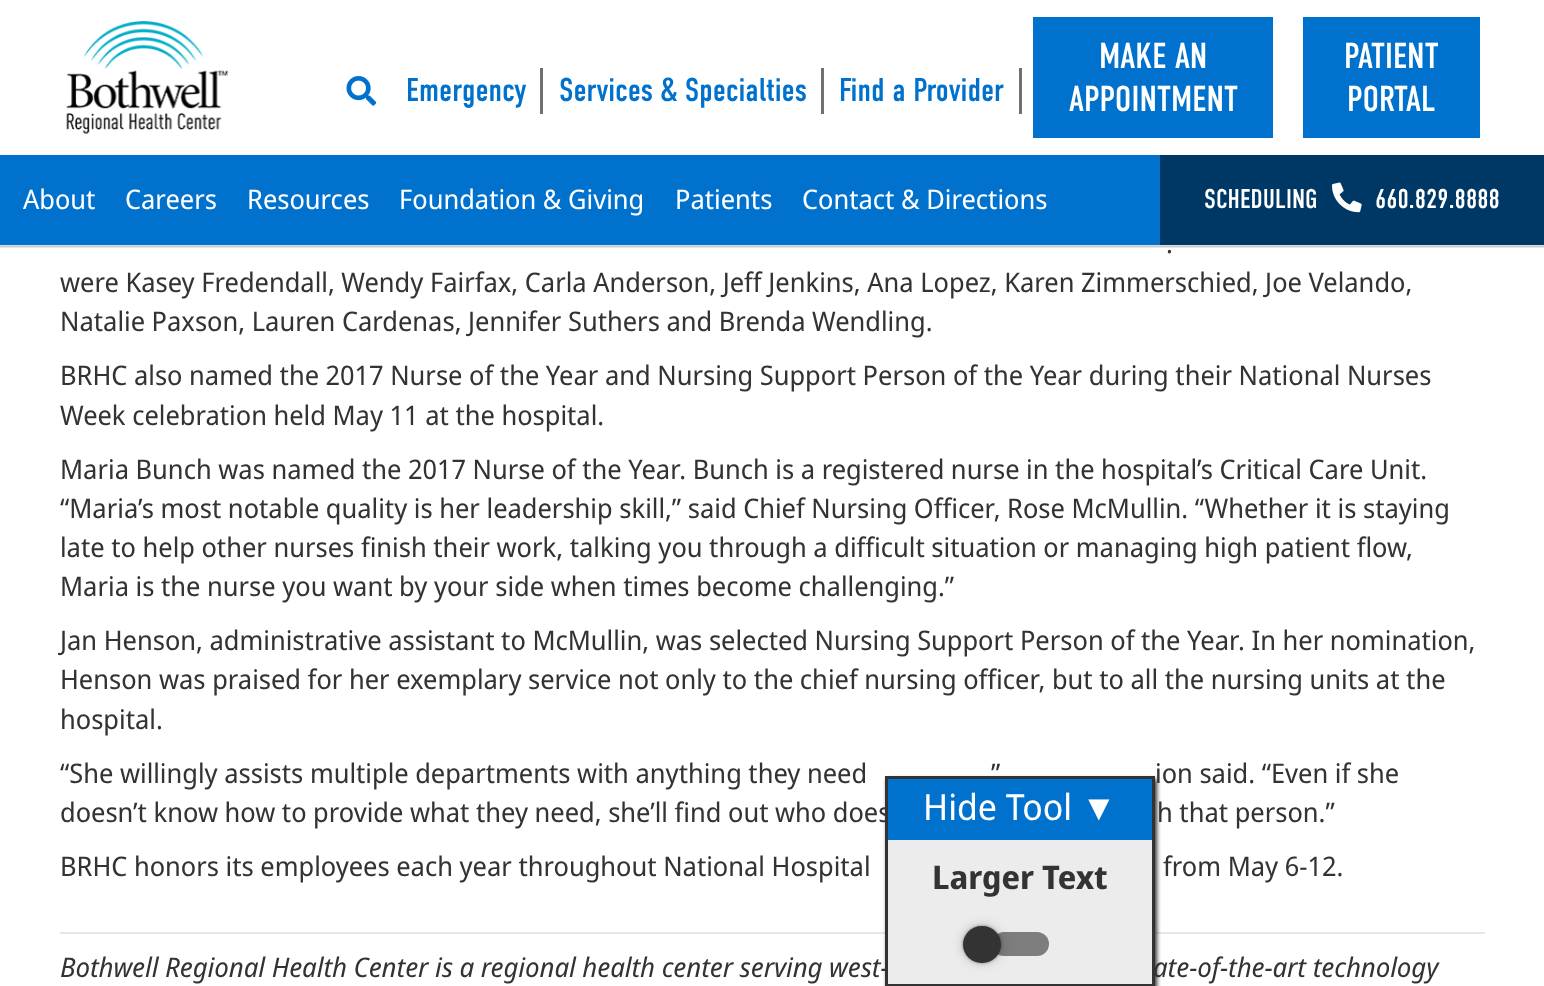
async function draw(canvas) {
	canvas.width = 1544;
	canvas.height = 986;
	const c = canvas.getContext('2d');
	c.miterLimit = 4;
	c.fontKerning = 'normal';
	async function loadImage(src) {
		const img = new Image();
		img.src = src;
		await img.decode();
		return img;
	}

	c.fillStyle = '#fff';
	c.fillRect(0, 0, 1544, 986);
	c.fillStyle = '#e6e6e6';
	c.fillRect(0, 246, 1544, 2);
	c.fillStyle = '#00000021';
	c.fillRect(0, 245, 1544, 2);
	c.drawImage(await loadImage('img1.png'), 66, 21, 162, 113);
	c.drawImage(await loadImage('img2.png'), 346, 76, 31, 30);
	c.fillStyle = '#707070';
	c.fillRect(540, 68, 3, 46);
	c.font = '33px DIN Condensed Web';
	c.fillStyle = '#0072ce';
	c.fillText('Emergency', 406, 101);
	c.fillStyle = '#707070';
	c.fillRect(821, 68, 3, 46);
	c.fillStyle = '#0072ce';
	c.fillText('Services & Specialties', 559, 101);
	c.fillStyle = '#707070';
	c.fillRect(1019, 68, 3, 46);
	c.fillStyle = '#0072ce';
	c.fillText('Find a Provider', 839, 101);
	c.fillRect(1033, 17, 240, 121);
	c.font = '36px DIN Condensed Web';
	c.fillStyle = '#fff';
	c.fillText('MAKE AN', 1099, 68);
	c.fillText('APPOINTMENT', 1069, 111);
	c.fillStyle = '#0072ce';
	c.fillRect(1303, 17, 177, 121);
	c.fillStyle = '#fff';
	c.fillText('PATIENT', 1344, 68);
	c.fillText('PORTAL', 1347, 111);
	c.fillStyle = '#0072ce';
	c.fillRect(0, 155, 1160, 90);
	c.font = '27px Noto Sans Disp';
	c.fillStyle = '#fff';
	for (const [text, x, y] of [
		['About', 23, 209],
		['Careers', 125, 209],
		['Resources', 247, 209],
		['Foundation & Giving', 399, 209],
		['Patients', 675, 209],
		['Contact & Directions', 802, 209],
	]) {
		c.fillText(text, x, y);
	}
	c.fillStyle = '#003865';
	c.fillRect(1160, 155, 384, 90);
	c.font = '27px DIN Condensed Web';
	c.fillStyle = '#fff';
	c.fillText('SCHEDULING', 1204, 208);
	c.drawImage(await loadImage('img3.png'), 1332, 182, 30, 31);
	c.fillText('660.829.8888', 1375, 208);
	c.font = '27px Noto Sans Disp';
	c.fillStyle = '#333';
	for (const [text, x, y] of [
		['.', 1166, 253],
		['were Kasey Fredendall, Wendy Fairfax, Carla Anderson, Jeff Jenkins, Ana Lopez, Karen Zimmerschied, Joe Velando,', 60, 292],
		['Natalie Paxson, Lauren Cardenas, Jennifer Suthers and Brenda Wendling.', 60, 331],
		['BRHC also named the 2017 Nurse of the Year and Nursing Support Person of the Year during their National Nurses', 60, 385],
		['Week celebration held May 11 at the hospital.', 60, 425],
		['Maria Bunch was named the 2017 Nurse of the Year. Bunch is a registered nurse in the hospital’s Critical Care Unit.', 60, 479],
		['“Maria’s most notable quality is her leadership skill,” said Chief Nursing Officer, Rose McMullin. “Whether it is staying', 60, 518],
		['late to help other nurses finish their work, talking you through a difficult situation or managing high patient flow,', 60, 557],
		['Maria is the nurse you want by your side when times become challenging.”', 60, 596],
		['Jan Henson, administrative assistant to McMullin, was selected Nursing Support Person of the Year. In her nomination,', 60, 650],
		['Henson was praised for her exemplary service not only to the chief nursing officer, but to all the nursing units at the', 60, 689],
		['hospital.', 60, 729],
		['“She willingly assists multiple departments with anything they need', 60, 783],
		['”', 991, 783],
		['ion said. “Even if she', 1155, 783],
		['doesn’t know how to provide what they need, she’ll find out who does', 60, 822],
		['h that person.”', 1157, 822],
		['BRHC honors its employees each year throughout National Hospital', 60, 876],
		['from May 6-12.', 1163, 876],
	]) {
		c.fillText(text, x, y);
	}
	c.fillStyle = '#e6e6e6';
	c.fillRect(60, 932, 1425, 2);
	c.font = 'italic 27px Noto Sans Disp';
	c.fillStyle = '#333';
	c.fillText('Bothwell Regional Health Center is a regional health center serving west-', 60, 977);
	c.fillText('ate-of-the-art technology', 1153, 977);
	c.filter = 'blur(2px)';
	c.beginPath();
	c.rect(887, 779, 270, 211);
	c.fill();
	c.filter = 'none';
	c.fillStyle = '#ececec';
	c.fillRect(888, 840, 264, 144);
	c.strokeStyle = '#333';
	c.lineWidth = 3;
	c.strokeRect(886.5, 777.5, 267, 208);
	c.fillStyle = '#0072ce';
	c.fillRect(888, 779, 264, 61);
	c.font = '36px Noto Sans Disp';
	c.fillStyle = '#fff';
	c.fillText('Hide Tool', 923, 820);
	c.font = '36px Liberation Sans';
	c.fillText('▼', 1081, 820);
	c.font = 'bold 32.5px Noto Sans Disp';
	c.fillStyle = '#333';
	c.fillText('Larger Text', 932, 889);
	c.fillStyle = '#7d7d7d';
	c.beginPath();
	c.roundRect(992, 932, 57, 24, 12);
	c.fill();
	c.fillStyle = '#00000066';
	c.filter = 'blur(1.5px)';
	c.beginPath();
	c.roundRect(963, 926, 38, 37, 18.5);
	c.fill();
	c.filter = 'none';
	c.fillStyle = '#00000033';
	c.filter = 'blur(6px)';
	c.beginPath();
	c.roundRect(963, 926, 38, 37, 18.5);
	c.fill();
	c.filter = 'none';
	c.fillStyle = '#333';
	c.beginPath();
	c.roundRect(963, 926, 38, 37, 18.5);
	c.fill();
}

draw(document.querySelector('canvas'));
